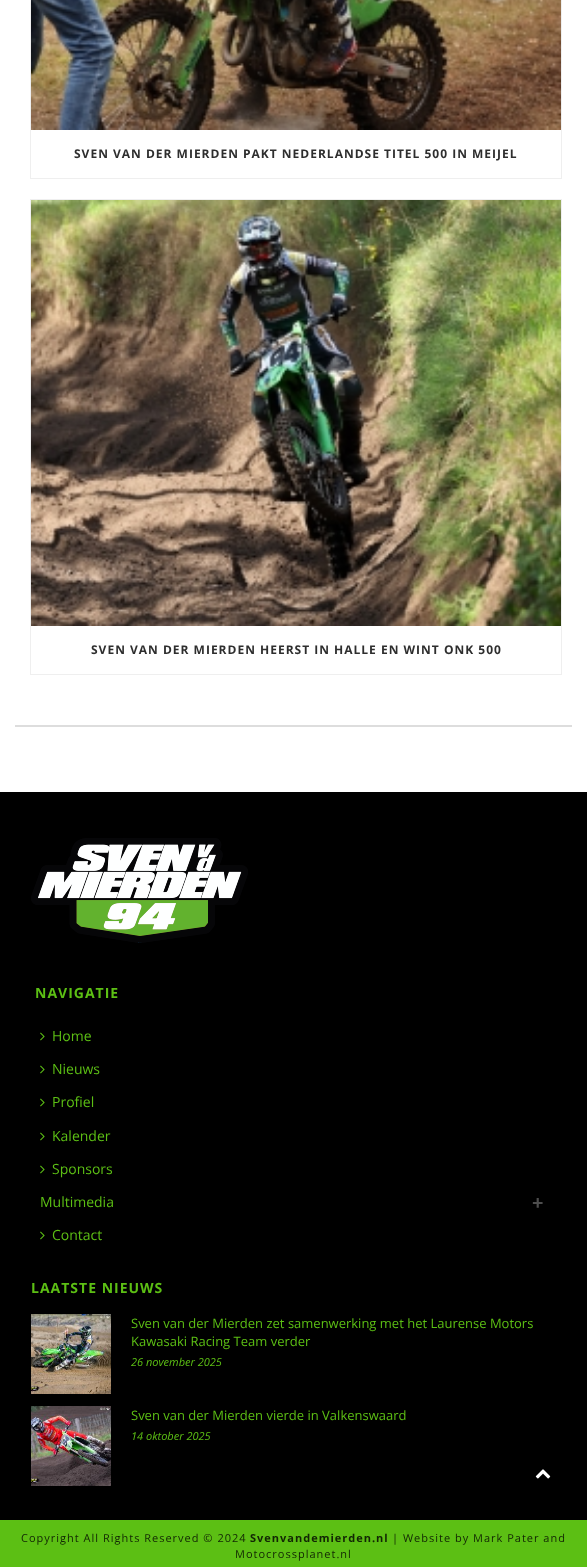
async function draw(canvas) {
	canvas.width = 587;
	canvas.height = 1567;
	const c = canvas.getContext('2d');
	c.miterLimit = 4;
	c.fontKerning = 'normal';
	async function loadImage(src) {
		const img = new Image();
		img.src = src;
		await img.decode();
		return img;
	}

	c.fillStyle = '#fff';
	c.fillRect(0, 0, 587, 1567);
	c.fillStyle = '#ddd';
	c.fillRect(15, 725, 557, 2);
	c.strokeStyle = '#efefef';
	c.strokeRect(30.5, -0.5, 531, 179);
	c.drawImage(await loadImage('img1.png'), 31, 0, 530, 130);
	c.letterSpacing = '1px';
	c.font = 'bold 12px Open Sans';
	c.fillStyle = '#2e2e2e';
	c.fillText('SVEN VAN DER MIERDEN PAKT NEDERLANDSE TITEL 500 IN MEIJEL', 74, 158);
	c.strokeRect(30.5, 199.5, 531, 475);
	c.drawImage(await loadImage('img2.png'), 31, 200, 530, 426);
	c.fillText('SVEN VAN DER MIERDEN HEERST IN HALLE EN WINT ONK 500', 91, 654);
	c.fillStyle = '#000';
	c.fillRect(0, 792, 587, 728);
	c.drawImage(await loadImage('img3.png'), 31, 838, 217, 105);
	c.font = 'bold 14px Open Sans';
	c.fillStyle = '#5cbf14';
	c.fillText('NAVIGATIE', 35, 998);
	c.drawImage(await loadImage('img4.png'), 40, 1032, 5, 9);
	c.letterSpacing = '0px';
	c.font = '14px Open Sans';
	c.fillText('Home', 52, 1041);
	c.drawImage(await loadImage('img4.png'), 40, 1065, 5, 9);
	c.fillText('Nieuws', 52, 1074);
	c.drawImage(await loadImage('img4.png'), 40, 1098, 5, 9);
	c.fillText('Profiel', 52, 1107);
	c.drawImage(await loadImage('img4.png'), 40, 1132, 5, 9);
	c.fillText('Kalender', 52, 1141);
	c.drawImage(await loadImage('img4.png'), 40, 1165, 5, 9);
	c.fillText('Sponsors', 52, 1174);
	c.fillText('Multimedia', 40, 1207);
	c.font = 'bold 20px Open Sans';
	c.fillStyle = '#4d4d4d';
	c.fillText('+', 532, 1210);
	c.drawImage(await loadImage('img4.png'), 40, 1231, 5, 9);
	c.font = '14px Open Sans';
	c.fillStyle = '#5cbf14';
	c.fillText('Contact', 52, 1240);
	c.letterSpacing = '1px';
	c.font = 'bold 14px Open Sans';
	c.fillText('LAATSTE NIEUWS', 31, 1293);
	c.drawImage(await loadImage('img5.png'), 31, 1314, 80, 80);
	c.letterSpacing = '0px';
	c.font = '13px Open Sans';
	c.fillText('Sven van der Mierden zet samenwerking met het Laurense Motors', 131, 1328);
	c.fillText('Kawasaki Racing Team verder', 131, 1346);
	c.font = 'italic 11px Open Sans';
	c.fillText('26 november 2025', 131, 1366);
	c.drawImage(await loadImage('img6.png'), 31, 1406, 80, 80);
	c.font = '13px Open Sans';
	c.fillText('Sven van der Mierden vierde in Valkenswaard', 131, 1420);
	c.font = 'italic 11px Open Sans';
	c.fillText('14 oktober 2025', 131, 1440);
	c.fillRect(0, 1520, 587, 47);
	c.letterSpacing = '1px';
	c.font = '11px Open Sans';
	c.fillStyle = '#122604';
	c.fillText('Copyright All Rights Reserved © 2024', 21, 1542);
	c.font = 'bold 11px Open Sans';
	c.fillText('Svenvandemierden.nl', 250, 1542);
	c.font = '11px Open Sans';
	c.fillText('| Website by Mark Pater and', 392, 1542);
	c.fillText('Motocrossplanet.nl', 235, 1558);
	c.drawImage(await loadImage('img7.png'), 535, 1469, 16, 10);
}

draw(document.querySelector('canvas'));
